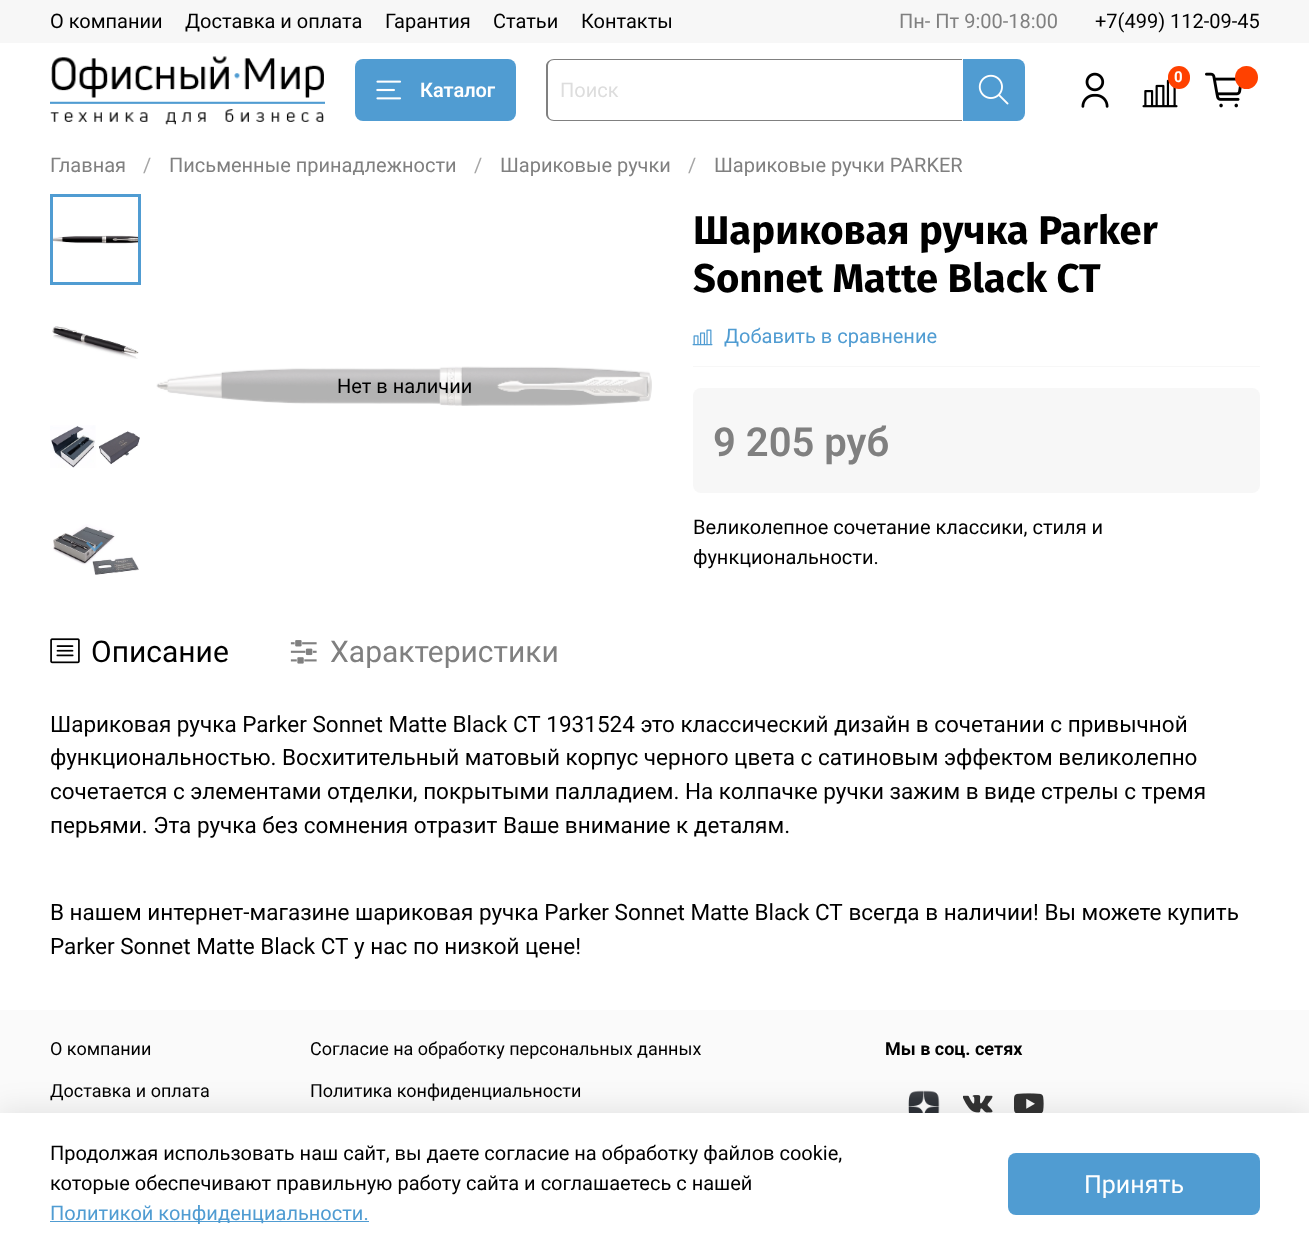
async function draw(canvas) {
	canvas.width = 1309;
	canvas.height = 1255;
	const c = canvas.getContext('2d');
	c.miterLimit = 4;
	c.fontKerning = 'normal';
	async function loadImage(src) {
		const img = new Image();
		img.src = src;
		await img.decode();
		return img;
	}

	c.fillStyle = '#fff';
	c.fillRect(0, 0, 1309, 1255);
	c.fillStyle = '#f7f7f7';
	c.fillRect(0, 0, 1309, 43);
	c.font = '20px Roboto';
	c.fillStyle = '#000';
	for (const [text, x, y] of [
		['О компании', 50, 28],
		['Доставка и оплата', 185, 28],
		['Гарантия', 385, 28],
		['Статьи', 493, 28],
		['Контакты', 581, 28],
	]) {
		c.fillText(text, x, y);
	}
	c.fillStyle = '#808080';
	c.fillText('Пн- Пт 9:00-18:00', 899, 28);
	c.fillStyle = '#000';
	c.fillText('+7(499) 112-09-45', 1095, 28);
	c.drawImage(await loadImage('img1.png'), 50, 56, 275, 69);
	c.drawImage(await loadImage('img2.png'), 1081, 72, 28, 36);
	c.drawImage(await loadImage('img3.png'), 1142, 79, 36, 29);
	c.fillStyle = '#ff4100';
	c.beginPath();
	c.roundRect(1168, 66, 22, 23, 11);
	c.fill();
	c.font = 'bold 15px Roboto';
	c.fillStyle = '#fff';
	c.fillText('0', 1174, 82);
	c.drawImage(await loadImage('img4.png'), 1205, 72, 37, 36);
	c.fillStyle = '#ff4100';
	c.beginPath();
	c.arc(1246.5, 77.5, 11.5, 0, 2 * Math.PI);
	c.fill();
	c.fillStyle = '#509cd2';
	c.beginPath();
	c.roundRect(355, 59, 161, 62, 8);
	c.fill();
	c.drawImage(await loadImage('img5.png'), 376, 80, 26, 20);
	c.font = '600 20px Roboto';
	c.fillStyle = '#fff';
	c.fillText('Каталог', 420, 97);
	c.fillStyle = '#808080';
	c.beginPath();
	c.moveTo(554, 59);
	c.lineTo(962, 59);
	c.lineTo(962, 121);
	c.lineTo(554, 121);
	c.bezierCurveTo(550, 121, 546, 118, 546, 114);
	c.lineTo(546, 66);
	c.bezierCurveTo(546, 62, 550, 59, 554, 59);
	c.closePath();
	c.moveTo(554, 60);
	c.lineTo(962, 60);
	c.lineTo(962, 120);
	c.lineTo(554, 120);
	c.bezierCurveTo(550, 120, 548, 117, 548, 114);
	c.lineTo(548, 66);
	c.bezierCurveTo(548, 63, 550, 60, 554, 60);
	c.closePath();
	c.fill('evenodd');
	c.font = '20px Roboto';
	c.fillStyle = '#ddd';
	c.fillText('Поиск', 560, 97);
	c.fillStyle = '#509cd2';
	c.beginPath();
	c.roundRect(963, 59, 62, 62, [0, 8, 8, 0]);
	c.fill();
	c.drawImage(await loadImage('img6.png'), 978, 74, 31, 31);
	c.fillStyle = '#808080';
	c.fillText('Главная', 50, 172);
	c.fillStyle = '#a6a6a6';
	c.fillText('/', 143, 172);
	c.fillStyle = '#808080';
	c.fillText('Письменные принадлежности', 169, 172);
	c.fillStyle = '#a6a6a6';
	c.fillText('/', 474, 172);
	c.fillStyle = '#808080';
	c.fillText('Шариковые ручки', 500, 172);
	c.fillStyle = '#a6a6a6';
	c.fillText('/', 688, 172);
	c.fillStyle = '#808080';
	c.fillText('Шариковые ручки PARKER', 714, 172);
	c.font = 'bold 40px Fira Sans';
	c.fillStyle = '#000';
	c.fillText('Шариковая ручка Parker', 693, 244);
	c.fillText('Sonnet Matte Black CT', 693, 292);
	c.fillStyle = '#f7f7f7';
	c.fillRect(693, 366, 567, 1);
	c.drawImage(await loadImage('img7.png'), 692, 329, 21, 17);
	c.font = '20px Roboto';
	c.fillStyle = '#509cd2';
	c.fillText('Добавить в сравнение', 724, 343);
	c.drawImage(await loadImage('img8.png'), 53, 235, 85, 9);
	c.strokeStyle = '#509cd2';
	c.lineWidth = 3;
	c.strokeRect(51.5, 195.5, 88, 88);
	c.drawImage(await loadImage('img9.png'), 52, 326, 87, 33);
	c.drawImage(await loadImage('img10.png'), 50, 425, 90, 43);
	c.drawImage(await loadImage('img11.png'), 53, 524, 86, 51);
	c.drawImage(await loadImage('img12.png'), 86, 541, 17, 11);
	c.drawImage(await loadImage('img13.png'), 156, 366, 496, 40);
	c.fillStyle = '#000';
	c.fillText('Нет в наличии', 337, 393);
	c.fillStyle = '#f7f7f7';
	c.beginPath();
	c.roundRect(693, 388, 567, 105, 8);
	c.fill();
	c.font = '600 40px Roboto';
	c.fillStyle = '#808080';
	c.fillText('9 205 руб', 713, 456);
	c.font = '20px Roboto';
	c.fillStyle = '#000';
	c.fillText('Великолепное сочетание классики, стиля и', 693, 534);
	c.fillText('функциональности.', 693, 564);
	c.drawImage(await loadImage('img14.png'), 50, 638, 30, 26);
	c.font = '30px Roboto';
	c.fillText('Описание', 91, 662);
	c.drawImage(await loadImage('img15.png'), 290, 640, 27, 24);
	c.fillStyle = '#808080';
	c.fillText('Характеристики', 330, 662);
	c.font = '22.5px Roboto';
	c.fillStyle = '#000';
	for (const [text, x, y] of [
		['Шариковая ручка Parker Sonnet Matte Black CT 1931524 это классический дизайн в сочетании с привычной', 50, 732],
		['функциональностью. Восхитительный матовый корпус черного цвета с сатиновым эффектом великолепно', 50, 765],
		['сочетается с элементами отделки, покрытыми палладием. На колпачке ручки зажим в виде стрелы с тремя', 50, 799],
		['перьями. Эта ручка без сомнения отразит Ваше внимание к деталям.', 50, 833],
		['В нашем интернет-магазине шариковая ручка Parker Sonnet Matte Black CT всегда в наличии! Вы можете купить', 50, 920],
		['Parker Sonnet Matte Black CT у нас по низкой цене!', 50, 954],
	]) {
		c.fillText(text, x, y);
	}
	c.fillStyle = '#fafafa';
	c.fillRect(0, 1010, 1309, 103);
	c.font = '18px Roboto';
	c.fillStyle = '#000';
	for (const [text, x, y] of [
		['О компании', 50, 1055],
		['Доставка и оплата', 50, 1097],
		['Согласие на обработку персональных данных', 310, 1055],
		['Политика конфиденциальности', 310, 1097],
	]) {
		c.fillText(text, x, y);
	}
	c.font = 'bold 18px Roboto';
	c.fillText('Мы в соц. сетях', 885, 1055);
	c.drawImage(await loadImage('img16.png'), 908, 1090, 32, 23);
	c.drawImage(await loadImage('img17.png'), 963, 1095, 30, 18);
	c.drawImage(await loadImage('img18.png'), 1014, 1093, 30, 20);
	c.fillStyle = '#00000017';
	c.filter = 'blur(14.5px)';
	c.beginPath();
	c.rect(-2, 1109, 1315, 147);
	c.fill();
	c.filter = 'none';
	c.fillStyle = '#fff';
	c.fillRect(0, 1113, 1309, 142);
	c.font = '20px Roboto';
	c.fillStyle = '#000';
	c.fillText('Продолжая использовать наш сайт, вы даете согласие на обработку файлов cookie,', 50, 1160);
	c.fillText('которые обеспечивают правильную работу сайта и соглашаетесь с нашей', 50, 1190);
	c.fillStyle = '#509cd2';
	c.fillRect(50, 1221, 319, 1);
	c.fillText('Политикой конфиденциальности.', 50, 1220);
	c.beginPath();
	c.roundRect(1008, 1153, 252, 62, 8);
	c.fill();
	c.font = '25px Roboto';
	c.fillStyle = '#fff';
	c.fillText('Принять', 1084, 1193);
}

draw(document.querySelector('canvas'));
